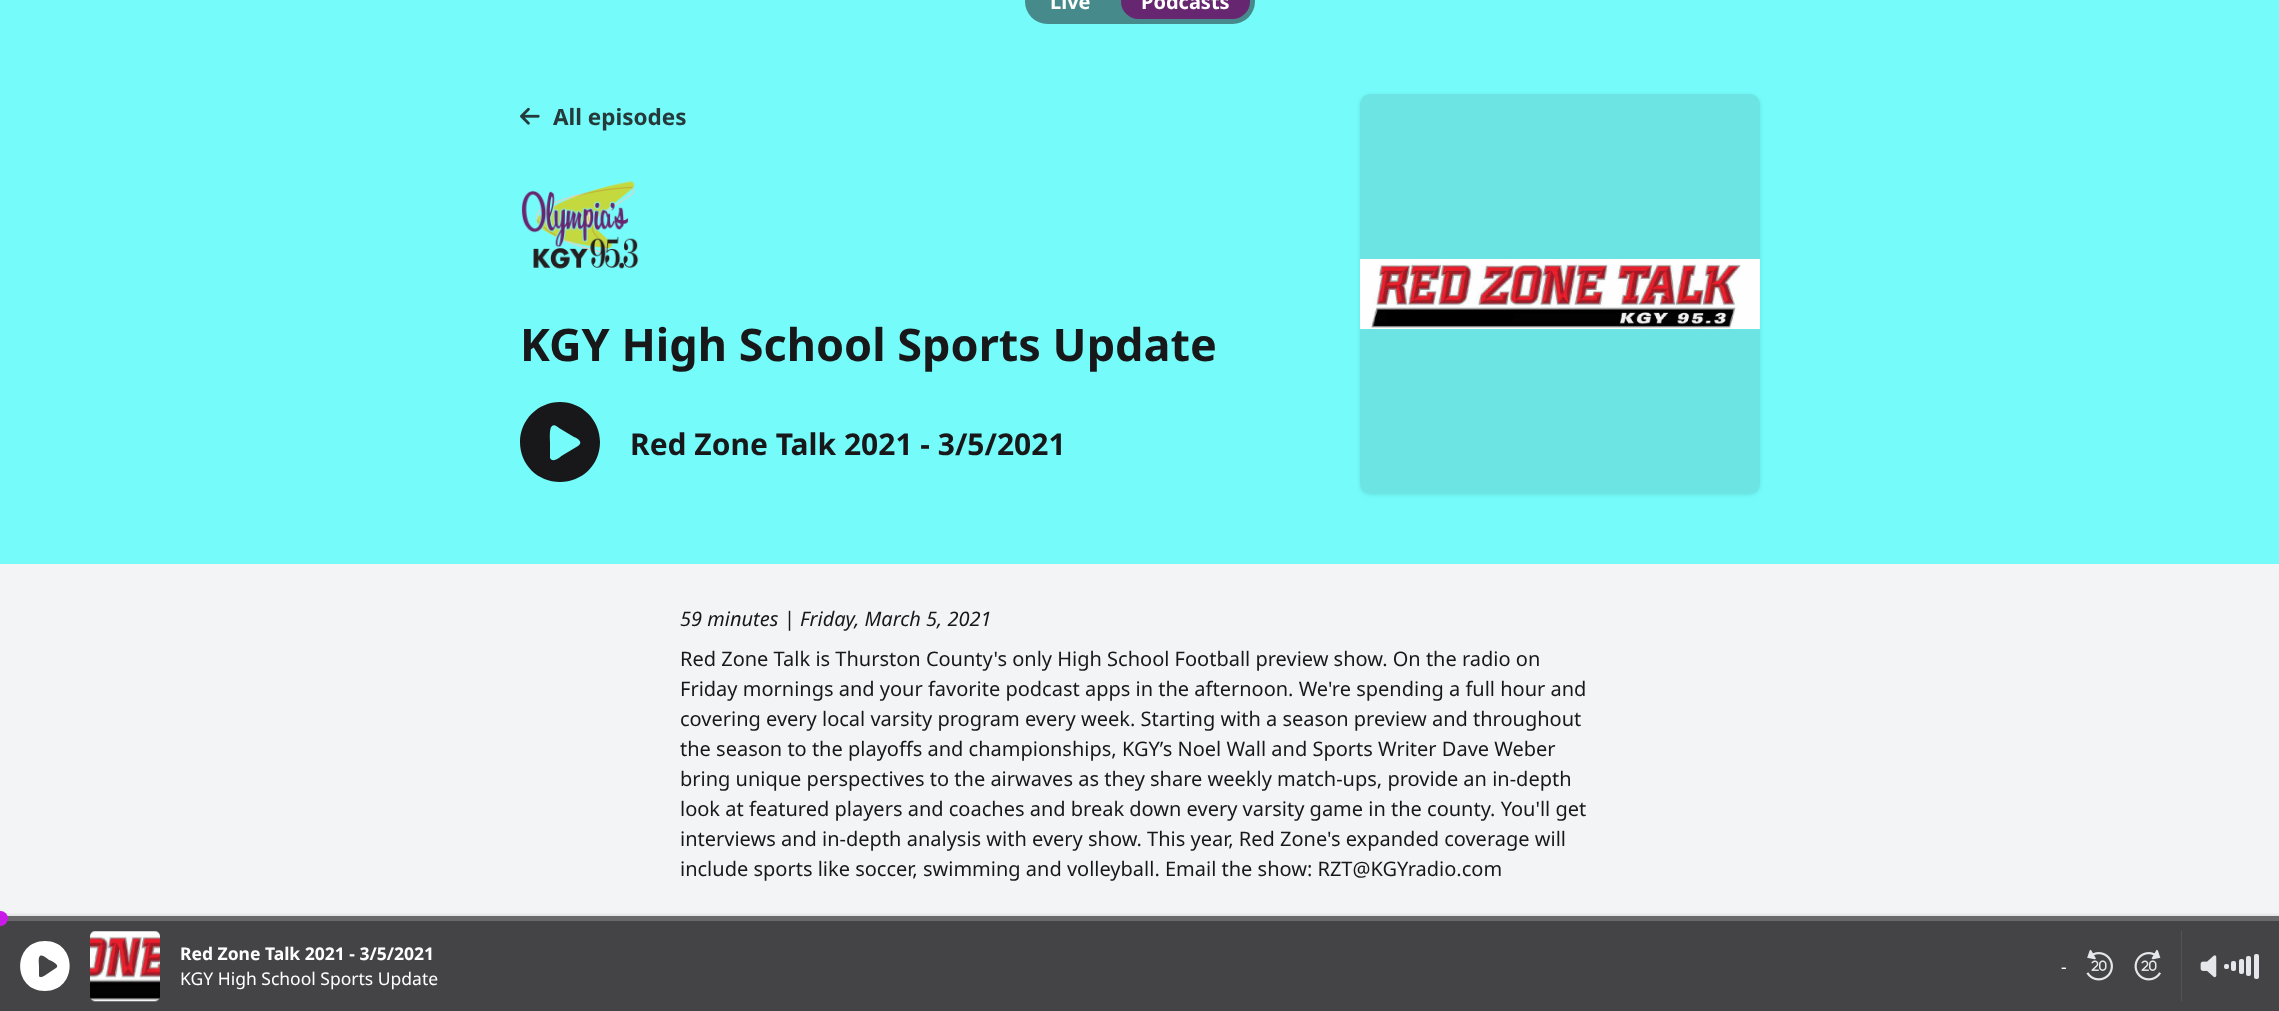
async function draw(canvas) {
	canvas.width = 2279;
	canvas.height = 1011;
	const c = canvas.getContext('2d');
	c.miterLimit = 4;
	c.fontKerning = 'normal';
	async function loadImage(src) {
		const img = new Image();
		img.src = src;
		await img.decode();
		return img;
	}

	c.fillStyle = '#f3f4f6';
	c.fillRect(0, 0, 2279, 1011);
	c.fillStyle = '#75fcfa';
	c.fillRect(0, 0, 2279, 564);
	c.fillStyle = '#478a8b';
	c.beginPath();
	c.roundRect(1025, -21, 230, 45, 22.5);
	c.fill();
	c.font = 'bold 20px Noto Sans';
	c.fillStyle = '#fff';
	c.fillText('Live', 1050, 9);
	c.fillStyle = '#662770';
	c.beginPath();
	c.roundRect(1121, -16, 129, 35, 17.5);
	c.fill();
	c.fillStyle = '#fff';
	c.fillText('Podcasts', 1141, 9);
	c.drawImage(await loadImage('img1.png'), 520, 107, 20, 18);
	c.font = 'bold 22.5px Noto Sans';
	c.fillStyle = '#263a3c';
	c.fillText('All episodes', 553, 125);
	c.drawImage(await loadImage('img2.png'), 521, 181, 118, 88);
	c.font = 'bold 45px Noto Sans';
	c.fillStyle = '#18181b';
	c.fillText('KGY High School Sports Update', 520, 361);
	c.beginPath();
	c.moveTo(560, 402);
	c.bezierCurveTo(538, 402, 520, 420, 520, 442);
	c.bezierCurveTo(520, 465, 538, 482, 560, 482);
	c.bezierCurveTo(582, 482, 600, 465, 600, 442);
	c.bezierCurveTo(600, 420, 582, 402, 560, 402);
	c.closePath();
	c.moveTo(578, 446);
	c.lineTo(563, 455);
	c.bezierCurveTo(561, 456, 553, 464, 550, 458);
	c.lineTo(550, 442);
	c.bezierCurveTo(550, 439, 549, 428, 552, 426);
	c.bezierCurveTo(554, 424, 557, 426, 559, 428);
	c.lineTo(574, 437);
	c.bezierCurveTo(577, 438, 584, 442, 578, 446);
	c.closePath();
	c.fill();
	c.font = 'bold 30px Noto Sans';
	c.fillText('Red Zone Talk 2021 - 3/5/2021', 630, 455);
	c.save();
	c.beginPath();
	c.moveTo(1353, 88);
	c.lineTo(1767, 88);
	c.lineTo(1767, 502);
	c.lineTo(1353, 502);
	c.closePath();
	c.moveTo(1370, 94);
	c.lineTo(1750, 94);
	c.bezierCurveTo(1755.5, 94, 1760, 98.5, 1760, 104);
	c.lineTo(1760, 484);
	c.bezierCurveTo(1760, 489.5, 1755.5, 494, 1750, 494);
	c.lineTo(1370, 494);
	c.bezierCurveTo(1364.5, 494, 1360, 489.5, 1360, 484);
	c.lineTo(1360, 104);
	c.bezierCurveTo(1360, 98.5, 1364.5, 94, 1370, 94);
	c.closePath();
	c.clip('evenodd');
	c.fillStyle = '#0000001a';
	c.filter = 'blur(2px)';
	c.beginPath();
	c.roundRect(1360, 95, 400, 400, 10);
	c.fill();
	c.filter = 'none';
	c.restore();
	c.fillStyle = '#18181b1a';
	c.beginPath();
	c.roundRect(1360, 94, 400, 400, 10);
	c.fill();
	c.drawImage(await loadImage('img3.png'), 1360, 259, 400, 70);
	c.font = 'italic 20px Noto Sans';
	c.fillStyle = '#18181b';
	c.fillText('59 minutes', 680, 626);
	c.font = '20px Noto Sans';
	c.fillText('|', 784, 626);
	c.font = 'italic 20px Noto Sans';
	c.fillText('Friday, March 5, 2021', 800, 626);
	c.font = '20px Noto Sans';
	for (const [text, x, y] of [
		['Red Zone Talk is Thurston County\'s only High School Football preview show. On the radio on', 680, 666],
		['Friday mornings and your favorite podcast apps in the afternoon. We\'re spending a full hour and', 680, 696],
		['covering every local varsity program every week. Starting with a season preview and throughout', 680, 726],
		['the season to the playoffs and championships, KGY’s Noel Wall and Sports Writer Dave Weber', 680, 756],
		['bring unique perspectives to the airwaves as they share weekly match-ups, provide an in-depth', 680, 786],
		['look at featured players and coaches and break down every varsity game in the county. You\'ll get', 680, 816],
		['interviews and in-depth analysis with every show. This year, Red Zone\'s expanded coverage will', 680, 846],
		['include sports like soccer, swimming and volleyball. Email the show: RZT@KGYradio.com', 680, 876],
	]) {
		c.fillText(text, x, y);
	}
	c.save();
	c.beginPath();
	c.rect(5, 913, 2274, 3);
	c.clip();
	c.fillStyle = '#0000001a';
	c.filter = 'blur(2px)';
	c.beginPath();
	c.rect(0, 915, 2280, 95);
	c.fill();
	c.filter = 'none';
	c.restore();
	c.fillStyle = '#18181bcc';
	c.fillRect(0, 921, 2279, 90);
	c.fillStyle = '#69696b';
	c.fillRect(0, 916, 2279, 5);
	c.fillStyle = '#c91be8';
	c.beginPath();
	c.arc(0.5, 918.5, 7.5, 0, 2 * Math.PI);
	c.fill();
	c.fillStyle = '#fff';
	c.beginPath();
	c.moveTo(45, 941);
	c.bezierCurveTo(12, 941, 12, 991, 45, 991);
	c.bezierCurveTo(78, 991, 78, 941, 45, 941);
	c.closePath();
	c.moveTo(56, 968);
	c.lineTo(47, 974);
	c.bezierCurveTo(46, 975, 40, 979, 39, 976);
	c.lineTo(39, 966);
	c.bezierCurveTo(39, 964, 38, 957, 40, 956);
	c.bezierCurveTo(42, 954, 48, 959, 49, 960);
	c.bezierCurveTo(50, 960, 61, 965, 56, 968);
	c.closePath();
	c.fill();
	c.drawImage(await loadImage('img4.png'), 90, 931, 70, 71);
	c.font = 'bold 17.5px Noto Sans';
	c.fillText('Red Zone Talk 2021 - 3/5/2021', 180, 960);
	c.font = '17.5px Noto Sans';
	c.fillText('KGY High School Sports Update', 180, 985);
	c.fillText('-', 2061, 973);
	c.drawImage(await loadImage('img5.png'), 2086, 949, 27, 32);
	c.drawImage(await loadImage('img6.png'), 2134, 949, 27, 32);
	c.fillStyle = '#545457';
	c.fillRect(2181, 931, 1, 70);
	c.drawImage(await loadImage('img7.png'), 2200, 955, 17, 23);
	c.fillStyle = '#e5e7eb';
	c.beginPath();
	c.roundRect(2224, 964, 5, 5, 2);
	c.fill();
	c.beginPath();
	c.roundRect(2231, 961, 5, 10, 2);
	c.fill();
	c.beginPath();
	c.roundRect(2239, 959, 5, 15, 2);
	c.fill();
	c.beginPath();
	c.roundRect(2246, 956, 5, 20, 2);
	c.fill();
	c.beginPath();
	c.roundRect(2254, 954, 5, 25, 2);
	c.fill();
}

draw(document.querySelector('canvas'));
